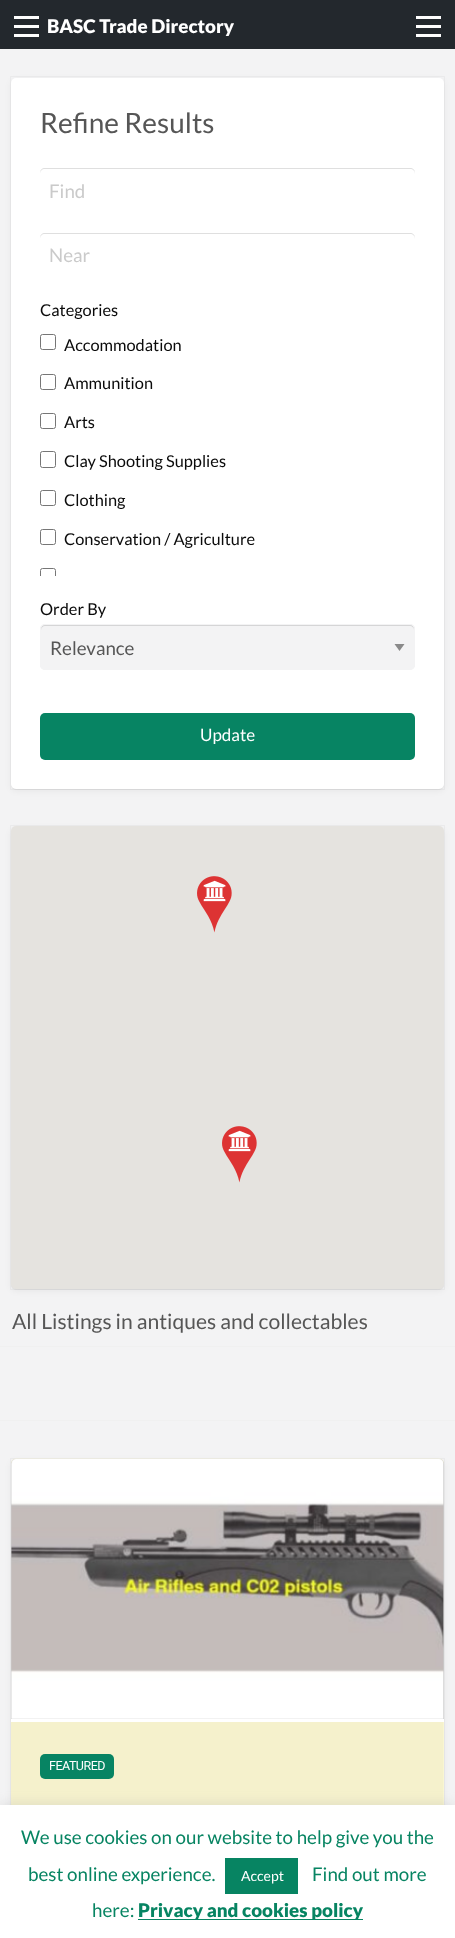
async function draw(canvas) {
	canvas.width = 455;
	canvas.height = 1938;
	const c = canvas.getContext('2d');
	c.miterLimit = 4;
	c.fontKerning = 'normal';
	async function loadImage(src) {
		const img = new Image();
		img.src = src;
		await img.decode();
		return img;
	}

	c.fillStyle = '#f3f3f4';
	c.fillRect(0, 0, 455, 1938);
	for (const [x, y, w, h, color] of [
		[0, 0, 455, 49, '#23282d'],
		[14, 34, 25, 3, '#fefefe'],
		[14, 25, 25, 3, '#fefefe'],
		[14, 16, 25, 3, '#fefefe'],
	]) {
		c.fillStyle = color;
		c.fillRect(x, y, w, h);
	}
	c.font = '900 18.75px Lato';
	c.fillStyle = '#fff';
	c.fillText('BASC Trade Directory', 47, 33);
	for (const [x, y, w, h, color] of [
		[416, 34, 25, 3, '#fefefe'],
		[416, 25, 25, 3, '#fefefe'],
		[416, 16, 25, 3, '#fefefe'],
	]) {
		c.fillStyle = color;
		c.fillRect(x, y, w, h);
	}
	c.fillStyle = '#0000000d';
	c.filter = 'blur(3px)';
	c.beginPath();
	c.roundRect(11, 80, 433, 711, 5);
	c.fill();
	c.filter = 'none';
	c.filter = 'blur(0.5px)';
	c.beginPath();
	c.roundRect(11, 79, 433, 711, 5);
	c.fill();
	c.filter = 'none';
	c.strokeStyle = '#00000008';
	c.strokeRect(10.5, 76.5, 434, 713);
	c.fillStyle = '#fff';
	c.beginPath();
	c.roundRect(11, 78, 433, 711, 5);
	c.fill();
	c.font = '28px Lato';
	c.fillStyle = '#565656';
	c.fillText('Refine Results', 40, 133);
	c.fillStyle = '#dfdfdf';
	c.beginPath();
	c.moveTo(45, 169);
	c.lineTo(410, 169);
	c.bezierCurveTo(413, 169, 415, 171, 415, 174);
	c.lineTo(415, 173);
	c.bezierCurveTo(415, 170, 413, 168, 410, 168);
	c.lineTo(45, 168);
	c.bezierCurveTo(42, 168, 40, 170, 40, 173);
	c.lineTo(40, 174);
	c.bezierCurveTo(40, 171, 42, 169, 45, 169);
	c.closePath();
	c.fill();
	c.font = '18.75px Lato';
	c.fillStyle = '#cacaca';
	c.fillText('Find', 49, 198);
	c.fillStyle = '#dfdfdf';
	c.beginPath();
	c.moveTo(45, 234);
	c.lineTo(410, 234);
	c.bezierCurveTo(413, 234, 415, 236, 415, 239);
	c.lineTo(415, 238);
	c.bezierCurveTo(415, 235, 413, 233, 410, 233);
	c.lineTo(45, 233);
	c.bezierCurveTo(42, 233, 40, 235, 40, 238);
	c.lineTo(40, 239);
	c.bezierCurveTo(40, 236, 42, 234, 45, 234);
	c.closePath();
	c.fill();
	c.fillStyle = '#cacaca';
	c.fillText('Near', 49, 262);
	c.font = '16.4px Lato';
	c.fillStyle = '#0a0a0a';
	c.fillText('Categories', 40, 316);
	c.beginPath();
	c.roundRect(40.5, 334.5, 15, 15, 2);
	c.strokeStyle = '#767676';
	c.stroke();
	c.fillText('Accommodation', 64, 351);
	c.beginPath();
	c.roundRect(40.5, 374.5, 15, 15, 2);
	c.stroke();
	c.fillText('Ammunition', 64, 389);
	c.beginPath();
	c.roundRect(40.5, 413.5, 15, 15, 2);
	c.stroke();
	c.fillText('Arts', 64, 428);
	c.beginPath();
	c.roundRect(40.5, 451.5, 15, 16, 2);
	c.stroke();
	c.fillText('Clay Shooting Supplies', 64, 467);
	c.beginPath();
	c.roundRect(40.5, 490.5, 15, 15, 2);
	c.stroke();
	c.fillText('Clothing', 64, 506);
	c.beginPath();
	c.roundRect(40.5, 529.5, 15, 15, 2);
	c.stroke();
	c.fillText('Conservation / Agriculture', 64, 545);
	c.save();
	c.beginPath();
	c.rect(40, 326, 375, 250);
	c.clip();
	c.beginPath();
	c.roundRect(40.5, 568.5, 15, 15, 2);
	c.stroke();
	c.restore();
	c.fillText('Order By', 40, 615);
	c.fillStyle = '#f3f3f4';
	c.beginPath();
	c.roundRect(40, 624, 375, 46, 5);
	c.fill();
	c.fillStyle = '#8a8a8a';
	c.beginPath();
	c.moveTo(394.5, 644);
	c.lineTo(404.5, 644);
	c.lineTo(399.5, 651);
	c.closePath();
	c.fill();
	c.fillStyle = '#d5d5d6';
	c.beginPath();
	c.moveTo(45, 626);
	c.lineTo(410, 626);
	c.bezierCurveTo(412, 626, 414, 628, 414, 630);
	c.bezierCurveTo(414, 627, 413, 625, 410, 625);
	c.lineTo(45, 625);
	c.bezierCurveTo(42, 625, 41, 627, 41, 630);
	c.bezierCurveTo(41, 628, 43, 626, 45, 626);
	c.closePath();
	c.fill();
	c.beginPath();
	c.roundRect(40.5, 624.5, 374, 45, 4.5);
	c.strokeStyle = '#f3f3f4';
	c.stroke();
	c.font = '18.75px Lato';
	c.fillStyle = '#565656';
	c.fillText('Relevance', 50, 655);
	c.fillStyle = '#078463';
	c.beginPath();
	c.roundRect(40, 713, 375, 47, 5);
	c.fill();
	c.font = '17px Lato';
	c.fillStyle = '#fff';
	c.fillText('Update', 200, 741);
	c.fillStyle = '#0000000d';
	c.filter = 'blur(3px)';
	c.beginPath();
	c.roundRect(11, 829, 433, 462, 5);
	c.fill();
	c.filter = 'none';
	c.filter = 'blur(0.5px)';
	c.beginPath();
	c.roundRect(11, 828, 433, 462, 5);
	c.fill();
	c.filter = 'none';
	c.strokeStyle = '#00000008';
	c.strokeRect(10.5, 825.5, 434, 464);
	c.fillStyle = '#e5e3df';
	c.beginPath();
	c.roundRect(11, 826, 433, 463, 5);
	c.fill();
	c.drawImage(await loadImage('img1.png'), 197, 876, 35, 57);
	c.drawImage(await loadImage('img1.png'), 222, 1126, 35, 57);
	c.font = '21.1px Lato';
	c.fillStyle = '#565656';
	c.fillText('All Listings in antiques and collectables', 12, 1329);
	c.fillStyle = '#f0f0f0';
	c.fillRect(0, 1346, 455, 1);
	c.fillRect(0, 1420, 455, 1);
	c.fillStyle = '#0000000d';
	c.filter = 'blur(3px)';
	c.beginPath();
	c.roundRect(11, 1461, 433, 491, 5);
	c.fill();
	c.filter = 'none';
	c.strokeRect(10.5, 1458.5, 434, 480);
	c.fillStyle = '#fcf9d7';
	c.beginPath();
	c.roundRect(11, 1459, 433, 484, 5);
	c.fill();
	c.drawImage(await loadImage('img2.png'), 11, 1458, 433, 347);
	c.fillStyle = '#ccc';
	c.beginPath();
	c.roundRect(11, 1459, 433, 262, [5, 5, 0, 0]);
	c.fill();
	c.drawImage(await loadImage('img3.png'), 11, 1459, 433, 260);
	c.fillStyle = '#fff';
	c.fillRect(11, 1719, 433, 3);
	c.fillStyle = '#078463';
	c.beginPath();
	c.roundRect(40, 1754, 74, 25, 5);
	c.fill();
	c.letterSpacing = '-0.5px';
	c.font = '12.5px Roboto';
	c.fillStyle = '#fff';
	c.fillText('FEATURED', 49, 1770);
	c.fillStyle = '#acabab4d';
	c.filter = 'blur(6px)';
	c.beginPath();
	c.rect(0, 1804, 455, 134);
	c.fill();
	c.filter = 'none';
	c.fillStyle = '#fff';
	c.fillRect(0, 1805, 455, 133);
	c.letterSpacing = '0px';
	c.font = '18.75px Lato';
	c.fillStyle = '#078462';
	c.fillText('We use cookies on our website to help give you the', 21, 1844);
	c.fillText('best online experience.', 28, 1881);
	c.fillRect(225, 1858, 73, 36);
	c.font = '14px Lato';
	c.fillStyle = '#fff';
	c.fillText('Accept', 241, 1881);
	c.font = '18.75px Lato';
	c.fillStyle = '#078462';
	c.fillText('Find out more', 312, 1881);
	c.fillText('here:', 92, 1917);
	c.fillRect(138, 1919, 225, 1);
	c.font = '900 18.75px Lato';
	c.fillText('Privacy and cookies policy', 138, 1917);
}

draw(document.querySelector('canvas'));
